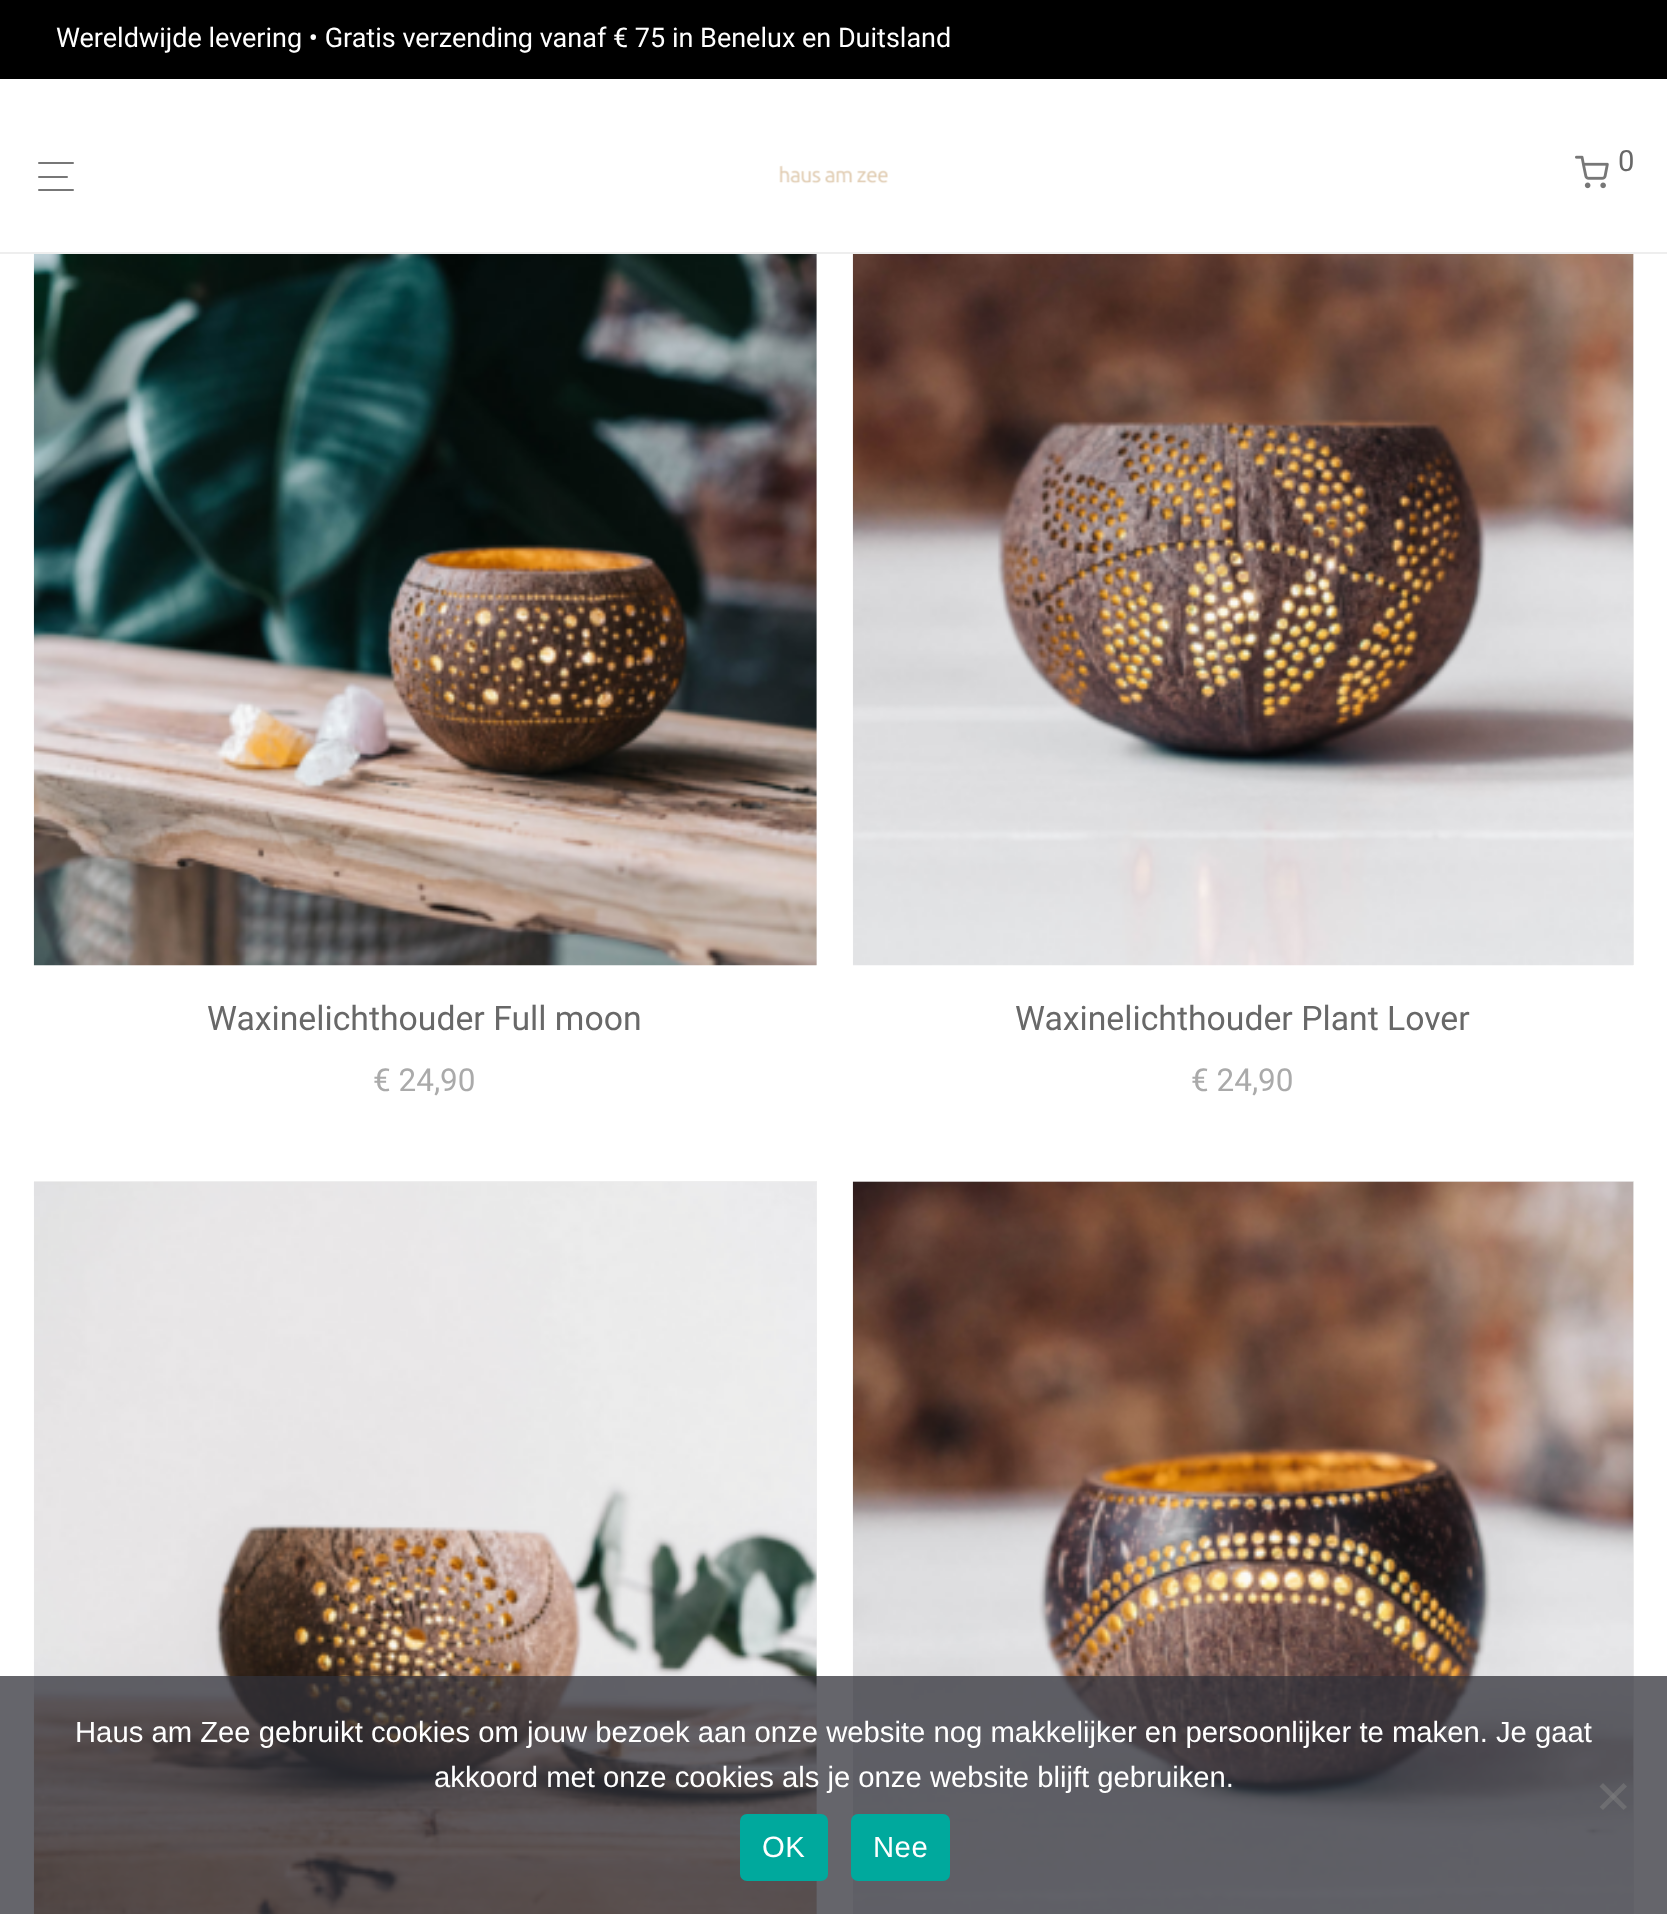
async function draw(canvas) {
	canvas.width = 1667;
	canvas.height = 1914;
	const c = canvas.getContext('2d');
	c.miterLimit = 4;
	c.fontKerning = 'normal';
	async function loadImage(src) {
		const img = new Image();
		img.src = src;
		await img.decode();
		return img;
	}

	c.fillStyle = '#fff';
	c.fillRect(0, 0, 1667, 1914);
	c.fillStyle = '#000';
	c.fillRect(0, 0, 1667, 79);
	c.font = '27px Roboto';
	c.fillStyle = '#fff';
	c.fillText('Wereldwijde levering • Gratis verzending vanaf € 75 in Benelux en Duitsland', 56, 47);
	c.fillStyle = '#eee';
	c.fillRect(0, 252, 1667, 2);
	c.fillStyle = '#777';
	c.beginPath();
	c.roundRect(38, 162, 36, 2, 1);
	c.fill();
	c.beginPath();
	c.roundRect(38, 176, 30, 2, 1);
	c.fill();
	c.beginPath();
	c.roundRect(38, 189, 36, 2, 1);
	c.fill();
	c.drawImage(await loadImage('img1.png'), 779, 165, 109, 19);
	c.drawImage(await loadImage('img2.png'), 1575, 155, 34, 34);
	c.font = '29.25px Roboto';
	c.fillStyle = '#686868';
	c.fillText('0', 1618, 171);
	c.fillStyle = '#eee';
	c.fillRect(816, 254, 1, 711);
	c.drawImage(await loadImage('img3.png'), 33, 254, 784, 712);
	c.font = '33.75px Roboto';
	c.fillStyle = '#686868';
	c.fillText('Waxinelichthouder Full moon', 207, 1030);
	c.font = '31.5px Roboto';
	c.fillStyle = '#aaa';
	c.fillText('€ 24,90', 373, 1091);
	c.fillStyle = '#eee';
	c.fillRect(1633, 254, 1, 711);
	c.drawImage(await loadImage('img4.png'), 852, 254, 782, 712);
	c.font = '33.75px Roboto';
	c.fillStyle = '#686868';
	c.fillText('Waxinelichthouder Plant Lover', 1015, 1030);
	c.font = '31.5px Roboto';
	c.fillStyle = '#aaa';
	c.fillText('€ 24,90', 1191, 1091);
	c.fillStyle = '#eee';
	c.fillRect(34, 1181, 783, 733);
	c.drawImage(await loadImage('img5.png'), 33, 1182, 784, 732);
	c.fillRect(853, 1181, 781, 733);
	c.drawImage(await loadImage('img6.png'), 852, 1181, 782, 733);
	c.fillStyle = '#32323abf';
	c.fillRect(0, 1676, 1667, 238);
	c.font = '29.25px Liberation Sans';
	c.fillStyle = '#fff';
	c.fillText('Haus am Zee gebruikt cookies om jouw bezoek aan onze website nog makkelijker en persoonlijker te maken. Je gaat', 75, 1742);
	c.fillText('akkoord met onze cookies als je onze website blijft gebruiken.', 434, 1787);
	c.fillStyle = '#80808080';
	c.beginPath();
	c.moveTo(1623.5, 1783);
	c.lineTo(1627, 1786.5);
	c.lineTo(1603, 1810);
	c.lineTo(1599.5, 1807);
	c.closePath();
	c.fill();
	c.beginPath();
	c.moveTo(1599.5, 1786.5);
	c.lineTo(1603, 1783);
	c.lineTo(1627, 1807);
	c.lineTo(1623.5, 1810);
	c.closePath();
	c.fill();
	c.fillStyle = '#00a99d';
	c.beginPath();
	c.roundRect(740, 1814, 88, 67, 7);
	c.fill();
	c.letterSpacing = '0.5px';
	c.fillStyle = '#fff';
	c.fillText('OK', 762, 1857);
	c.fillStyle = '#00a99d';
	c.beginPath();
	c.roundRect(851, 1814, 99, 67, 7);
	c.fill();
	c.fillStyle = '#fff';
	c.fillText('Nee', 873, 1857);
}

draw(document.querySelector('canvas'));
